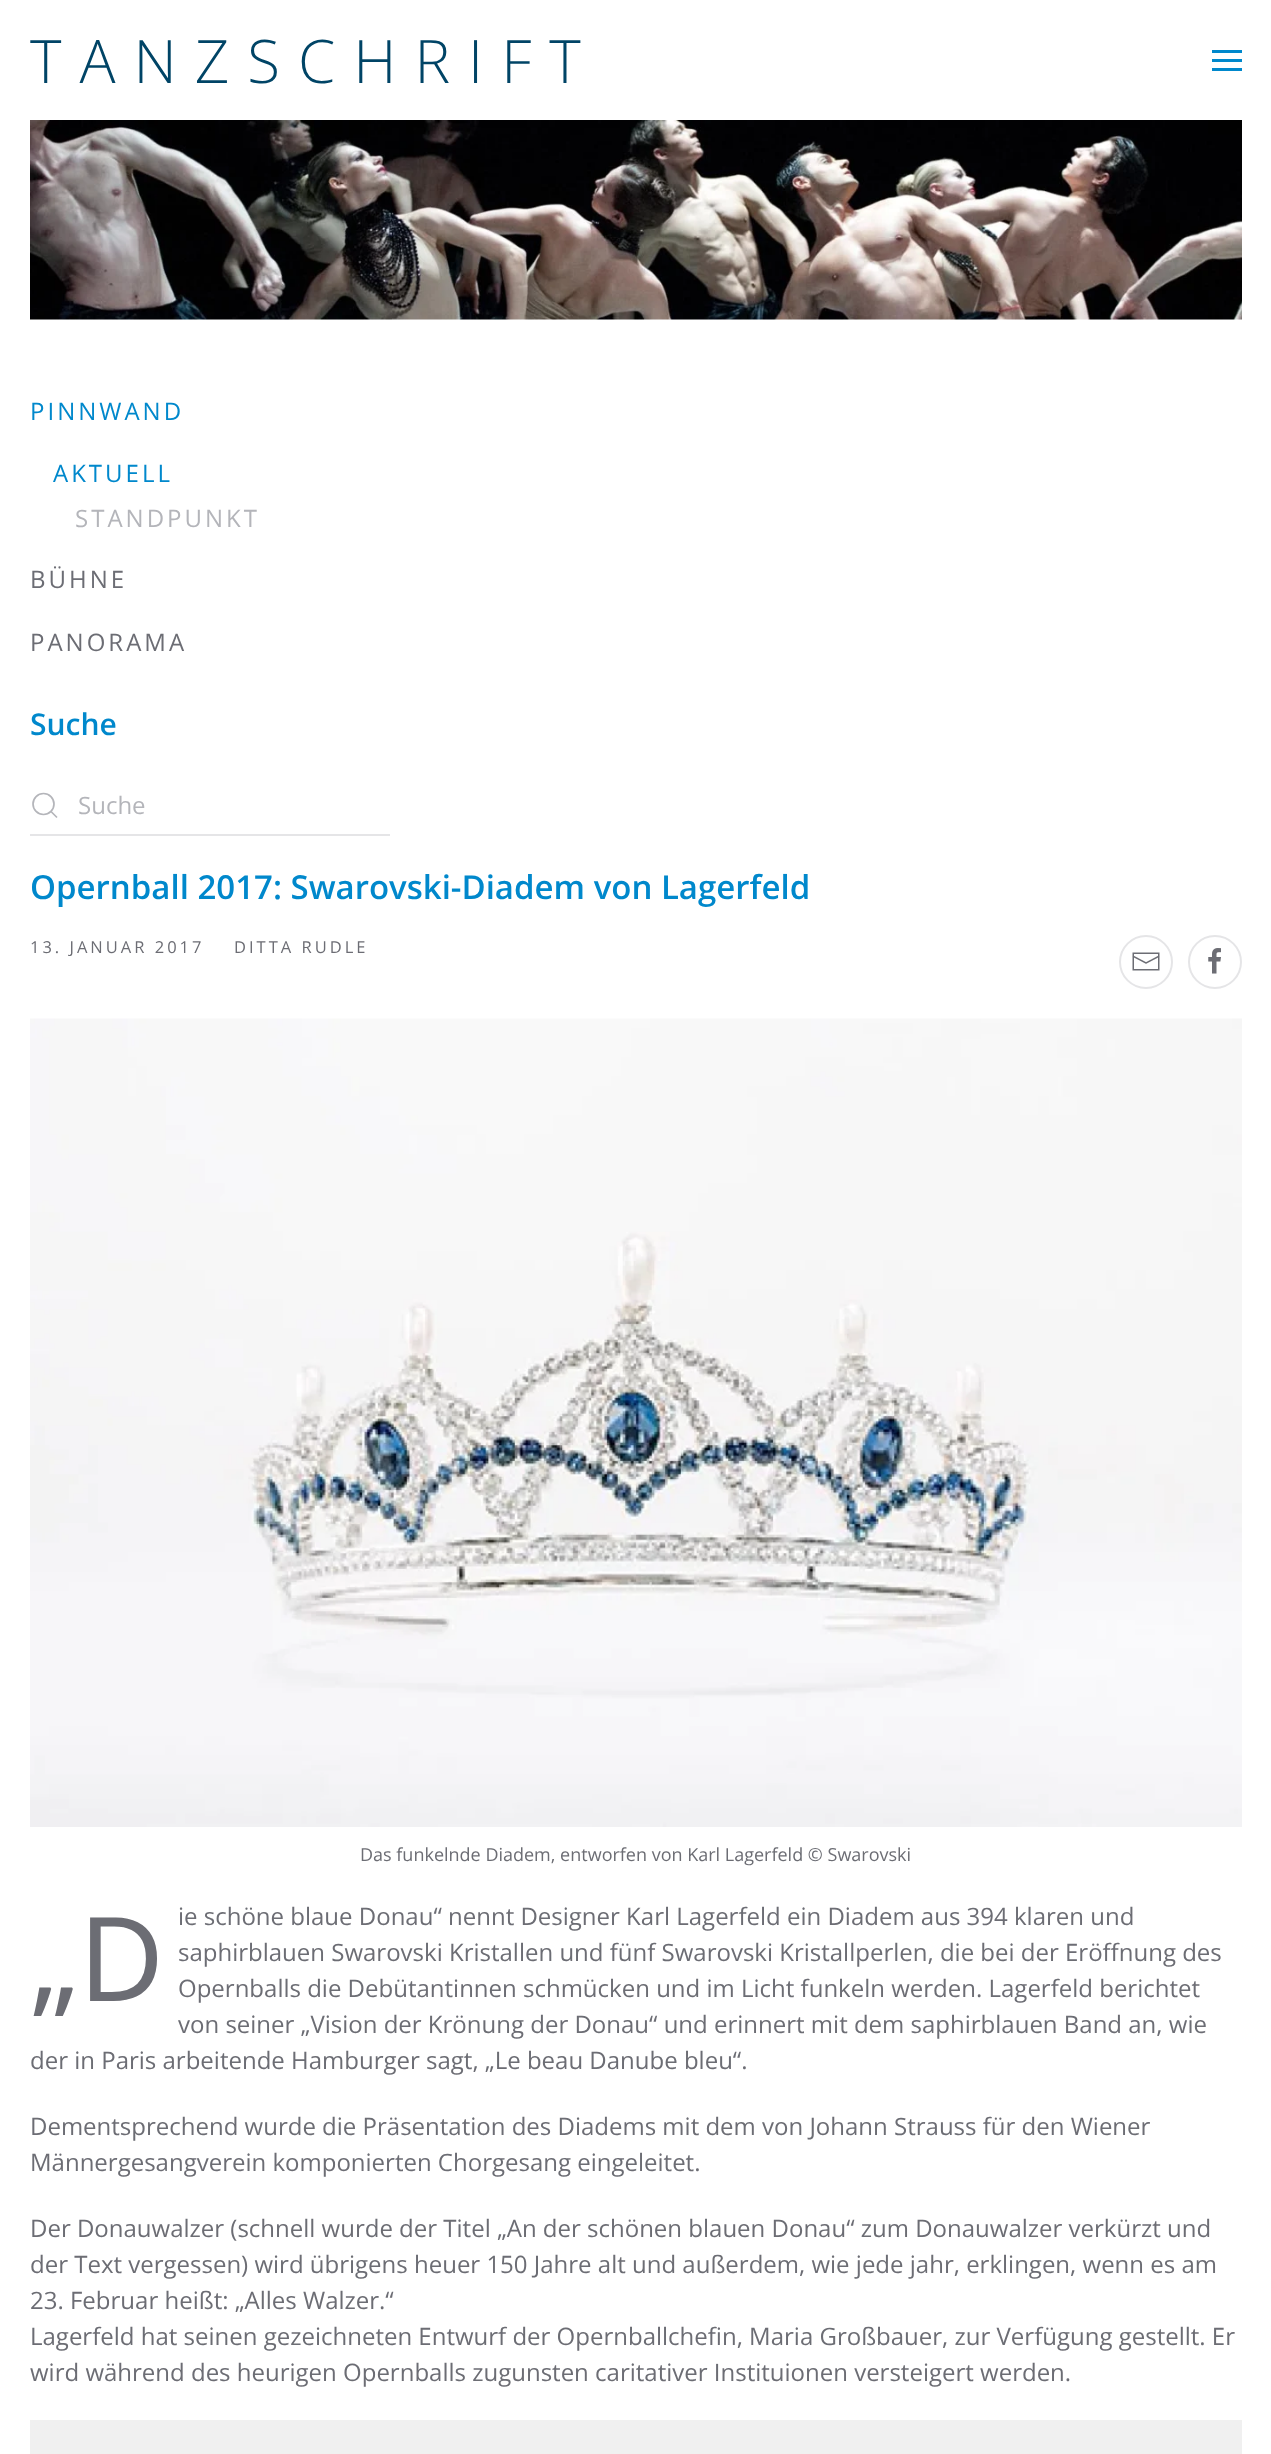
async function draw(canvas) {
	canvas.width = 1271;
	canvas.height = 2454;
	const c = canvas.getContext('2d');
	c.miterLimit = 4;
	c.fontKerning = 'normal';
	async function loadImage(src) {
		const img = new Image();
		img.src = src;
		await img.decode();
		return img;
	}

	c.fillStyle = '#fff';
	c.fillRect(0, 0, 1271, 2454);
	c.letterSpacing = '18px';
	c.font = '300 60px Open Sans';
	c.fillStyle = '#046';
	c.fillText('TANZSCHRIFT', 30, 83);
	for (const [x, y, w, h, color] of [
		[1212, 50, 30, 3, '#08c'],
		[1212, 59, 30, 3, '#08c'],
		[1212, 68, 30, 3, '#08c'],
	]) {
		c.fillStyle = color;
		c.fillRect(x, y, w, h);
	}
	c.drawImage(await loadImage('img1.png'), 30, 120, 1212, 200);
	c.letterSpacing = '3px';
	c.font = '24px Open Sans';
	c.fillText('PINNWAND', 30, 420);
	c.fillText('AKTUELL', 53, 482);
	c.fillStyle = '#b4b5ba';
	c.fillText('STANDPUNKT', 75, 527);
	c.fillStyle = '#6c6d74';
	c.fillText('BÜHNE', 30, 588);
	c.fillText('PANORAMA', 30, 651);
	c.letterSpacing = '0px';
	c.font = '600 30px Open Sans';
	c.fillStyle = '#08c';
	c.fillText('Suche', 30, 735);
	c.beginPath();
	c.arc(43.5, 804, 10.5, 0, 2 * Math.PI);
	c.strokeStyle = '#b4b5ba';
	c.lineWidth = 1.7;
	c.stroke();
	c.beginPath();
	c.moveTo(51, 811.5);
	c.lineTo(57, 817.5);
	c.closePath();
	c.stroke();
	c.fillStyle = '#e5e5e7';
	c.fillRect(30, 834, 360, 2);
	c.font = '24px Open Sans';
	c.fillStyle = '#b4b5ba';
	c.fillText('Suche', 78, 814);
	c.font = '600 33px Open Sans';
	c.fillStyle = '#08c';
	c.fillText('Opernball 2017: Swarovski-Diadem von Lagerfeld', 30, 899);
	c.letterSpacing = '3px';
	c.font = '16.5px Open Sans';
	c.fillStyle = '#6c6d74';
	c.fillText('13. JANUAR 2017', 30, 953);
	c.fillText('DITTA RUDLE', 234, 953);
	c.beginPath();
	c.arc(1146, 962, 26, 0, 2 * Math.PI);
	c.strokeStyle = '#e5e5e7';
	c.lineWidth = 2;
	c.stroke();
	c.drawImage(await loadImage('img2.png'), 1132, 952, 28, 19);
	c.beginPath();
	c.arc(1215, 962, 26, 0, 2 * Math.PI);
	c.stroke();
	c.drawImage(await loadImage('img3.png'), 1208, 948, 13, 26);
	c.drawImage(await loadImage('img4.png'), 30, 1018, 1212, 809);
	c.letterSpacing = '0px';
	c.font = '18px Open Sans';
	c.fillText('Das funkelnde Diadem, entworfen von Karl Lagerfeld © Swarovski', 360, 1861);
	c.font = '117px Noto Sans';
	c.fillText('„D', 30, 2001);
	c.font = '24px Open Sans';
	for (const [text, x, y] of [
		['ie schöne blaue Donau“ nennt Designer Karl Lagerfeld ein Diadem aus 394 klaren und', 178, 1925],
		['saphirblauen Swarovski Kristallen und fünf Swarovski Kristallperlen, die bei der Eröffnung des', 178, 1961],
		['Opernballs die Debütantinnen schmücken und im Licht funkeln werden. Lagerfeld berichtet', 178, 1997],
		['von seiner „Vision der Krönung der Donau“ und erinnert mit dem saphirblauen Band an, wie', 178, 2033],
		['der in Paris arbeitende Hamburger sagt, „Le beau Danube bleu“.', 30, 2069],
		['Dementsprechend wurde die Präsentation des Diadems mit dem von Johann Strauss für den Wiener', 30, 2135],
		['Männergesangverein komponierten Chorgesang eingeleitet.', 30, 2171],
		['Der Donauwalzer (schnell wurde der Titel „An der schönen blauen Donau“ zum Donauwalzer verkürzt und', 30, 2237],
		['der Text vergessen) wird übrigens heuer 150 Jahre alt und außerdem, wie jede jahr, erklingen, wenn es am', 30, 2273],
		['23. Februar heißt: „Alles Walzer.“', 30, 2309],
		['Lagerfeld hat seinen gezeichneten Entwurf der Opernballchefin, Maria Großbauer, zur Verfügung gestellt. Er', 30, 2345],
		['wird während des heurigen Opernballs zugunsten caritativer Instituionen versteigert werden.', 30, 2381],
	]) {
		c.fillText(text, x, y);
	}
	c.fillStyle = '#f0f0f0';
	c.fillRect(30, 2420, 1212, 34);
}

draw(document.querySelector('canvas'));
